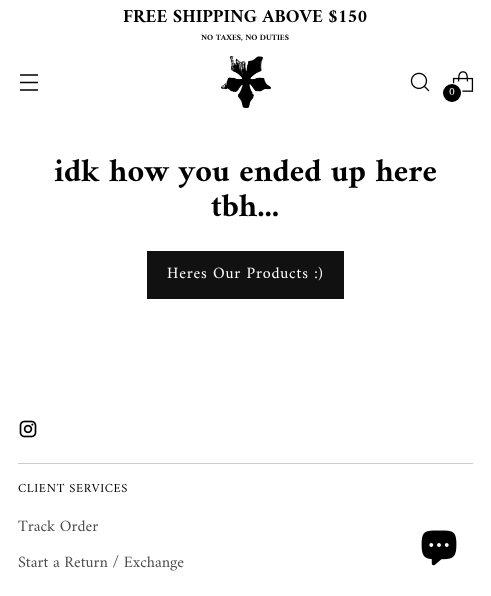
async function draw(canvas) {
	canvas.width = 491;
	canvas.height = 596;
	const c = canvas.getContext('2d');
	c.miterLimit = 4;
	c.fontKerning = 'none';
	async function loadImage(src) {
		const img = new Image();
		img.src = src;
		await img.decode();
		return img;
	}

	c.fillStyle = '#fff';
	c.fillRect(0, 0, 491, 596);
	c.font = 'bold 18.6px Amiri';
	c.fillStyle = '#000';
	c.fillText('FREE SHIPPING ABOVE $150', 123, 22);
	c.font = 'bold 8.25px Amiri';
	c.fillText('NO TAXES, NO DUTIES', 201, 40);
	c.beginPath();
	c.moveTo(20, 82.5);
	c.lineTo(38, 82.5);
	c.moveTo(20, 75);
	c.lineTo(38, 75);
	c.moveTo(20, 90);
	c.lineTo(38, 90);
	c.strokeStyle = '#000';
	c.lineWidth = 1.3;
	c.stroke();
	c.drawImage(await loadImage('img1.png'), 221, 56, 50, 52);
	c.drawImage(await loadImage('img2.png'), 410, 72, 20, 20);
	c.drawImage(await loadImage('img3.png'), 452, 71, 22, 21);
	c.beginPath();
	c.arc(452.5, 93.5, 9.5, 0, 2 * Math.PI);
	c.strokeStyle = '#fff';
	c.lineWidth = 2;
	c.stroke();
	c.beginPath();
	c.arc(452, 93, 9, 0, 2 * Math.PI);
	c.fill();
	c.font = '11px Amiri';
	c.fillStyle = '#fff';
	c.fillText('0', 449, 95);
	c.font = 'bold 32.25px Amiri';
	c.fillStyle = '#000';
	c.fillText('idk how you ended up here', 54, 181);
	c.fillText('tbh...', 211, 216);
	c.save();
	c.beginPath();
	c.rect(147, 251, 197, 48);
	c.clip();
	c.fillStyle = '#111';
	c.beginPath();
	c.moveTo(104, 251);
	c.lineTo(359, 251);
	c.lineTo(387, 299);
	c.lineTo(132, 299);
	c.closePath();
	c.fill();
	c.restore();
	c.letterSpacing = '0.8px';
	c.font = '16px Amiri';
	c.fillStyle = '#fff';
	c.fillText('Heres Our Products :)', 167, 278);
	c.fillStyle = '#ccc';
	c.fillRect(18, 463, 455, 1);
	c.drawImage(await loadImage('img4.png'), 19, 420, 18, 18);
	c.letterSpacing = '0.6px';
	c.font = '12.5px Amiri';
	c.fillStyle = '#000';
	c.fillText('CLIENT SERVICES', 18, 492);
	c.letterSpacing = '0px';
	c.font = '16px Amiri';
	c.fillStyle = '#4d4d4d';
	c.fillText('Track Order', 18, 531);
	c.fillText('Start a Return / Exchange', 18, 567);
	c.drawImage(await loadImage('img5.png'), 421, 530, 36, 36);
}

draw(document.querySelector('canvas'));
